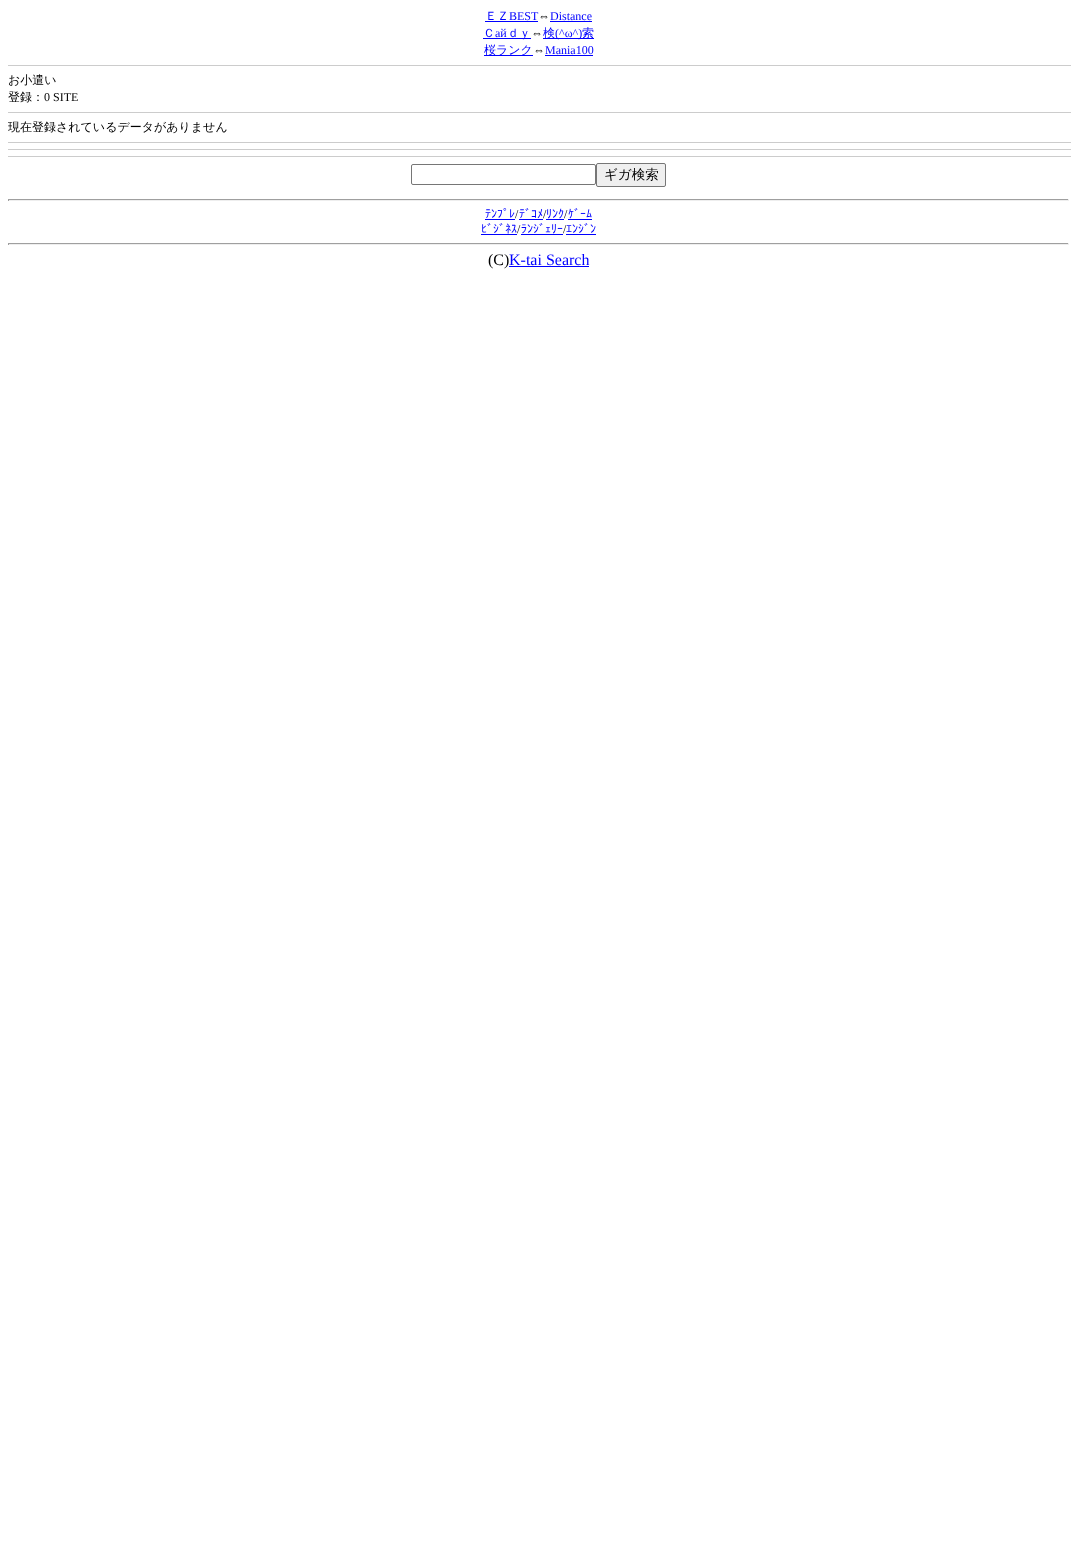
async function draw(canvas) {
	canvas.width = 1077;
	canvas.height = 1550;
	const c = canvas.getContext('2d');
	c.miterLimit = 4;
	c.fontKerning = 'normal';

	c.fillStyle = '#fff';
	c.fillRect(0, 0, 1077, 1550);
	c.font = '500 12px WenQuanYi Zen Hei';
	c.fillStyle = '#00f';
	c.fillText('ＥＺ', 485, 20);
	c.font = '12px Liberation Serif';
	c.fillText('BEST', 509, 20);
	c.fillRect(485, 21, 53, 1);
	c.fillStyle = '#000';
	c.fillText('⇔', 538, 20);
	c.fillStyle = '#00f';
	c.fillText('Distance', 550, 20);
	c.fillRect(550, 21, 42, 1);
	c.font = '500 12px WenQuanYi Zen Hei';
	c.fillText('Ｃ', 483, 37);
	c.font = '12px Liberation Serif';
	c.fillText('ай', 495, 37);
	c.fillRect(483, 38, 48, 1);
	c.font = '500 12px WenQuanYi Zen Hei';
	c.fillText('ｄｙ', 507, 37);
	c.font = '12px Liberation Serif';
	c.fillStyle = '#000';
	c.fillText('⇔', 531, 37);
	c.fillStyle = '#00f';
	c.fillRect(543, 38, 51, 1);
	c.font = '500 12px WenQuanYi Zen Hei';
	c.fillText('検', 543, 37);
	c.font = '12px Liberation Serif';
	c.fillText('(^ω^)', 555, 37);
	c.font = '500 12px WenQuanYi Zen Hei';
	c.fillText('索', 582, 37);
	c.fillRect(484, 55, 49, 1);
	c.fillText('桜ランク', 484, 54);
	c.font = '12px Liberation Serif';
	c.fillStyle = '#000';
	c.fillText('⇔', 533, 54);
	c.fillStyle = '#00f';
	c.fillText('Mania100', 545, 54);
	c.fillRect(545, 55, 48, 1);
	c.fillStyle = '#ccc';
	c.fillRect(8, 65, 1063, 1);
	c.font = '500 12px WenQuanYi Zen Hei';
	c.fillStyle = '#000';
	c.fillText('お小遣い', 8, 84);
	c.fillText('登録：', 8, 101);
	c.font = '12px Liberation Serif';
	c.fillText('0 SITE', 44, 101);
	c.fillStyle = '#ccc';
	c.fillRect(8, 112, 1063, 1);
	c.font = '500 12px WenQuanYi Zen Hei';
	c.fillStyle = '#000';
	c.fillText('現在登録されているデータがありません', 8, 131);
	for (const [x, y, w, h, color] of [
		[8, 142, 1063, 1, '#ccc'],
		[8, 149, 1063, 1, '#ccc'],
		[8, 156, 1063, 1, '#ccc'],
	]) {
		c.fillStyle = color;
		c.fillRect(x, y, w, h);
	}
	c.beginPath();
	c.roundRect(411.5, 164.5, 184, 20, 1.5);
	c.strokeStyle = '#767676';
	c.stroke();
	c.fillStyle = '#efefef';
	c.beginPath();
	c.roundRect(596.5, 163.5, 69, 23, 1.5);
	c.fill();
	c.stroke();
	c.font = '500 13.5px WenQuanYi Zen Hei';
	c.fillStyle = '#000';
	c.fillText('ギガ検索', 604, 179);
	for (const [x, y, w, h, color] of [
		[8, 199, 1061, 1, '#9f9f9f'],
		[1068, 199, 1, 2, '#eee'],
		[8, 200, 1061, 1, '#eee'],
		[8, 199, 1, 2, '#9f9f9f'],
	]) {
		c.fillStyle = color;
		c.fillRect(x, y, w, h);
	}
	c.font = '12px IPAGothic';
	c.fillStyle = '#00f';
	c.fillText('ﾃﾝﾌﾟﾚ', 485, 218);
	c.fillRect(485, 219, 30, 1);
	c.font = '12px Liberation Serif';
	c.fillStyle = '#000';
	c.fillText('/', 515, 218);
	c.font = '12px IPAGothic';
	c.fillStyle = '#00f';
	c.fillText('ﾃﾞｺﾒ', 519, 218);
	c.fillRect(519, 219, 24, 1);
	c.font = '12px Liberation Serif';
	c.fillStyle = '#000';
	c.fillText('/', 543, 218);
	c.font = '12px IPAGothic';
	c.fillStyle = '#00f';
	c.fillText('ﾘﾝｸ', 546, 218);
	c.fillRect(546, 219, 18, 1);
	c.font = '12px Liberation Serif';
	c.fillStyle = '#000';
	c.fillText('/', 564, 218);
	c.font = '12px IPAGothic';
	c.fillStyle = '#00f';
	c.fillText('ｹﾞｰﾑ', 568, 218);
	c.fillRect(568, 219, 24, 1);
	c.fillText('ﾋﾞｼﾞﾈｽ', 481, 233);
	c.fillRect(481, 234, 36, 1);
	c.font = '12px Liberation Serif';
	c.fillStyle = '#000';
	c.fillText('/', 517, 233);
	c.font = '12px IPAGothic';
	c.fillStyle = '#00f';
	c.fillText('ﾗﾝｼﾞｪﾘｰ', 521, 233);
	c.fillRect(521, 234, 42, 1);
	c.font = '12px Liberation Serif';
	c.fillStyle = '#000';
	c.fillText('/', 563, 233);
	c.font = '12px IPAGothic';
	c.fillStyle = '#00f';
	c.fillText('ｴﾝｼﾞﾝ', 566, 233);
	for (const [x, y, w, h, color] of [
		[566, 234, 30, 1, '#00f'],
		[8, 243, 1061, 1, '#9f9f9f'],
		[1068, 243, 1, 2, '#eee'],
		[8, 244, 1061, 1, '#eee'],
		[8, 243, 1, 2, '#9f9f9f'],
	]) {
		c.fillStyle = color;
		c.fillRect(x, y, w, h);
	}
	c.font = '16px Liberation Serif';
	c.fillStyle = '#000';
	c.fillText('(C)', 488, 265);
	c.fillStyle = '#00f';
	c.fillRect(509, 266, 80, 1);
	c.fillText('K-tai Search', 509, 265);
}

draw(document.querySelector('canvas'));
